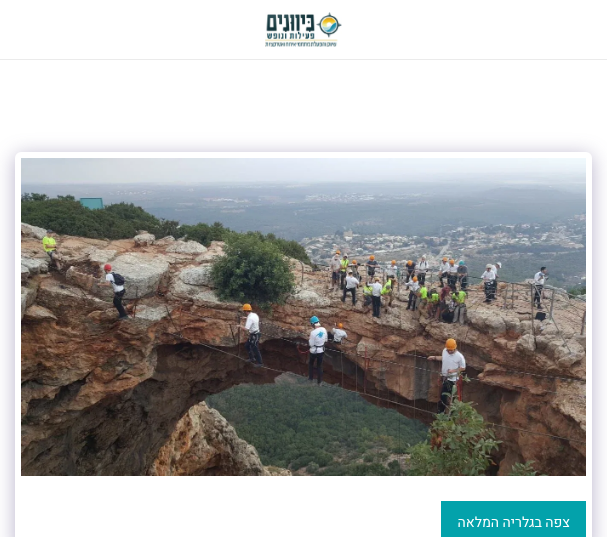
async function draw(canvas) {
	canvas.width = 607;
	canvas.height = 537;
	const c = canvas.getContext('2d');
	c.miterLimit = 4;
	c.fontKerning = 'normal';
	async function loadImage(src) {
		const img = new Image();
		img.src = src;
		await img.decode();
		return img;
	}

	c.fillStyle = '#fff';
	c.fillRect(0, 0, 607, 537);
	c.fillStyle = '#ebebeb';
	c.fillRect(0, 59, 607, 1);
	c.drawImage(await loadImage('img1.png'), 265, 12, 77, 35);
	c.fillStyle = '#4d3f7a66';
	c.filter = 'blur(10px)';
	c.beginPath();
	c.roundRect(15, 155, 577, 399, 6);
	c.fill();
	c.filter = 'none';
	c.fillStyle = '#fff';
	c.beginPath();
	c.roundRect(15, 152, 577, 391, 6);
	c.fill();
	c.drawImage(await loadImage('img2.png'), 21, 158, 565, 318);
	c.fillStyle = '#03a2ab';
	c.fillRect(441, 501, 145, 36);
	c.direction = 'rtl';
	c.font = '14px Heebo';
	c.fillStyle = '#fff';
	c.fillText('צפה בגלריה המלאה', 570, 527);
}

draw(document.querySelector('canvas'));
